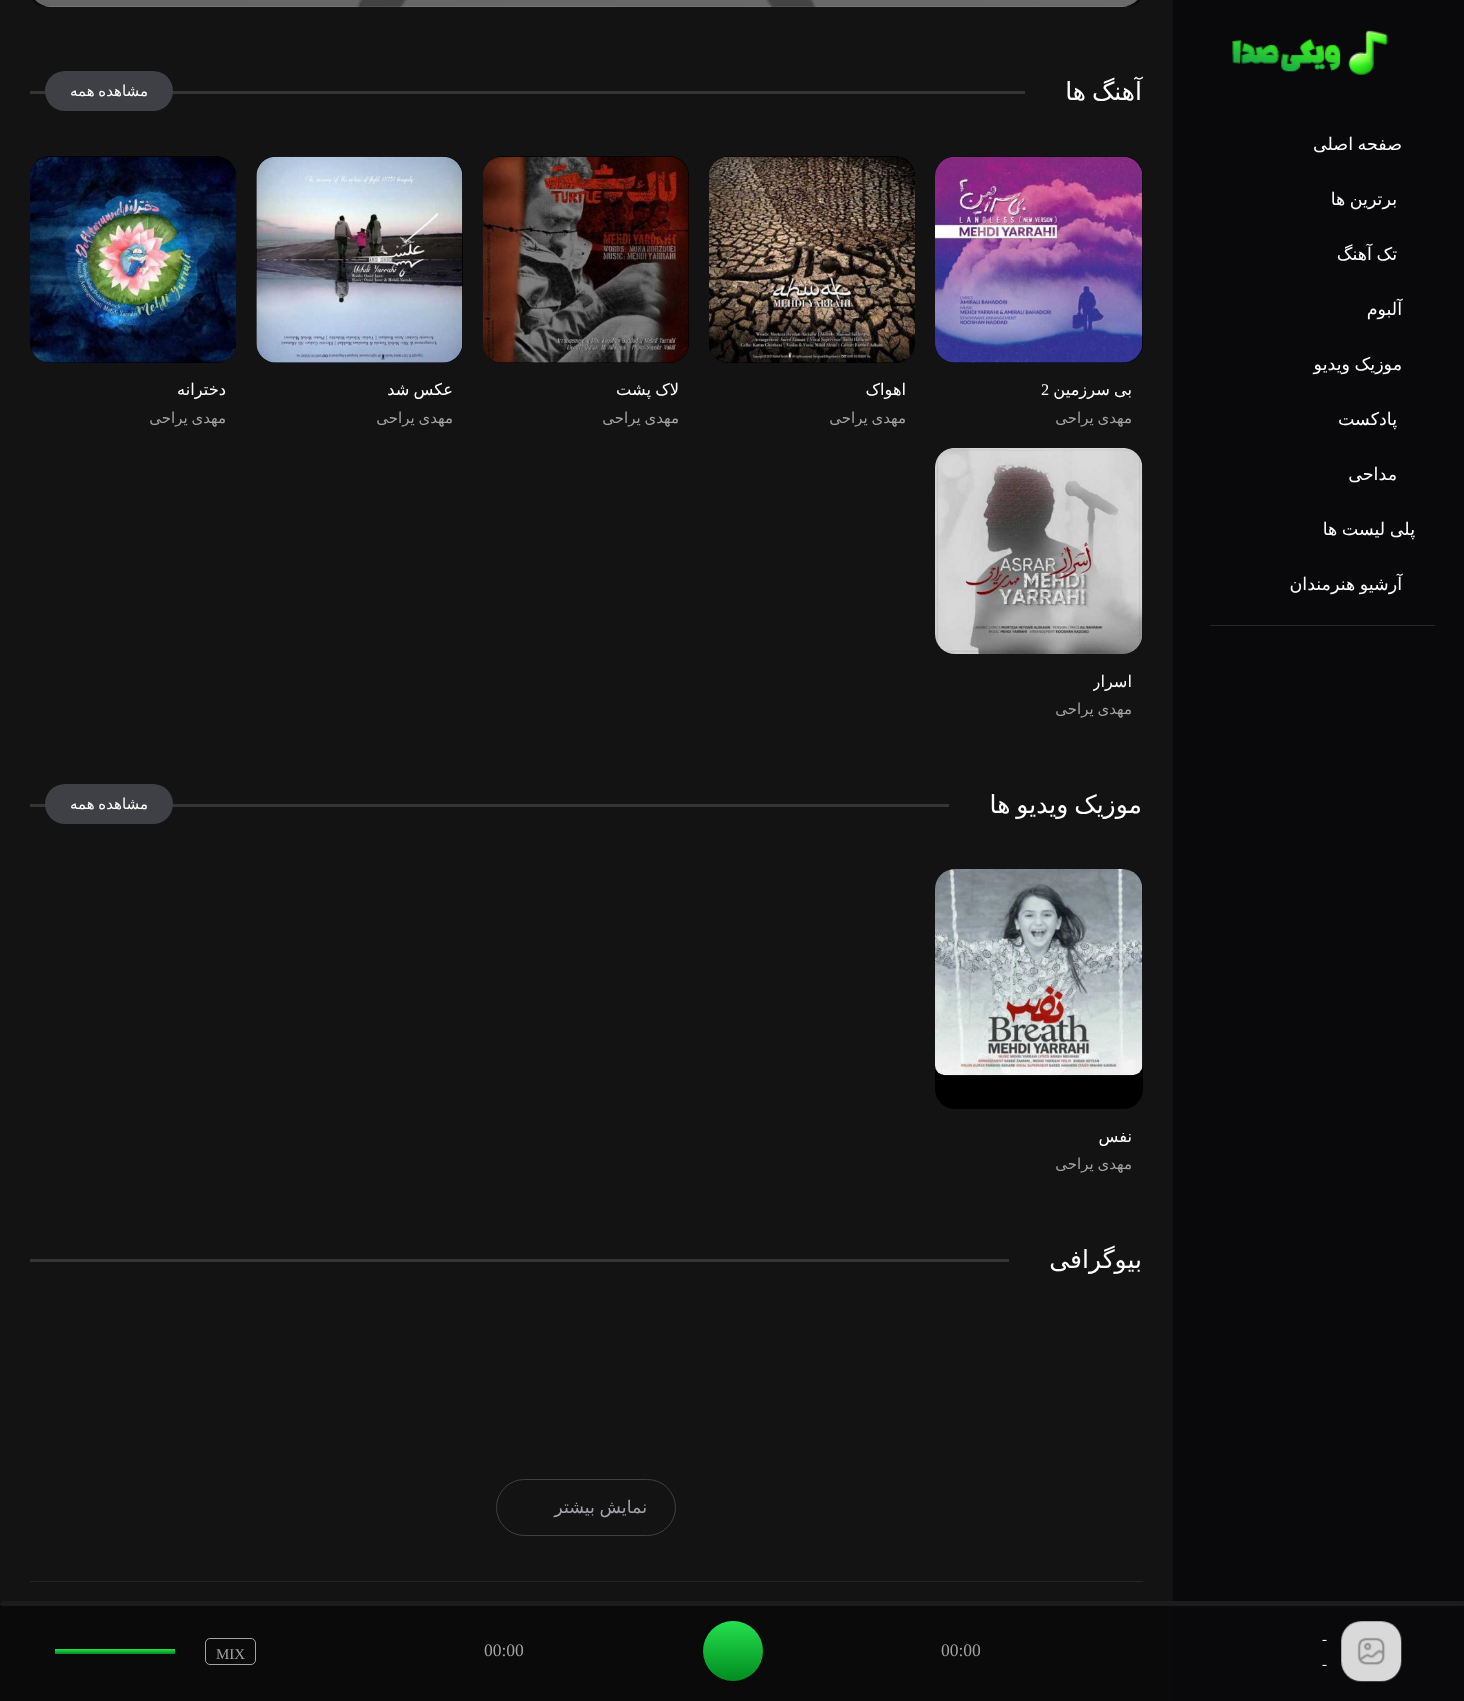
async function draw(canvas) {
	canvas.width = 1464;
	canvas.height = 1701;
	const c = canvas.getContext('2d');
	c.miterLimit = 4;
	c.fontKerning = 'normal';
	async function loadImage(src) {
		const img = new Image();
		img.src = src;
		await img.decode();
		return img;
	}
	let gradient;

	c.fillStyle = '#131313';
	c.fillRect(0, 0, 1464, 1701);
	c.fillStyle = '#0a0a0b';
	c.fillRect(0, 1601, 1173, 100);
	c.fillStyle = '#09090b';
	c.fillRect(1173, 0, 291, 1701);
	c.drawImage(await loadImage('img1.png'), 1232, 30, 156, 45);
	c.fillStyle = '#292524';
	c.fillRect(1210, 625, 225, 1);
	c.wordSpacing = '-1px';
	c.direction = 'rtl';
	c.font = '17.5px DejaVu Sans';
	c.fillStyle = '#fff';
	for (const [text, x, y] of [
		['صفحه اصلی', 1402, 150],
		['برترین ها', 1397, 205],
		['تک آهنگ', 1397, 260],
	]) {
		c.fillText(text, x, y);
	}
	c.wordSpacing = '0px';
	c.fillText('آلبوم', 1402, 315);
	c.wordSpacing = '-1px';
	c.fillText('موزیک ویدیو', 1402, 370);
	c.wordSpacing = '0px';
	c.fillText('پادکست', 1397, 425);
	c.fillText('مداحی', 1397, 480);
	c.wordSpacing = '-1px';
	c.fillText('پلی لیست ها', 1415, 535);
	c.fillText('آرشیو هنرمندان', 1402, 590);
	c.drawImage(await loadImage('img2.png'), 35, 0, 1103, 7);
	gradient = c.createLinearGradient(583, 16, 590, -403);
	gradient.addColorStop(0, '#0000008a');
	gradient.addColorStop(1, '#00000000');
	c.fillStyle = gradient;
	c.beginPath();
	c.roundRect(30, -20, 1113, 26, 20);
	c.fill();
	c.wordSpacing = '-2px';
	c.font = '25px DejaVu Sans';
	c.fillStyle = '#fff';
	c.fillText('آهنگ ها', 1142, 100);
	c.fillStyle = '#353535';
	c.fillRect(30, 91, 995, 3);
	c.fillStyle = '#3f3f46';
	c.beginPath();
	c.roundRect(45, 71, 128, 40, 20);
	c.fill();
	c.wordSpacing = '-1px';
	c.font = '15px DejaVu Sans';
	c.fillStyle = '#fff';
	c.fillText('مشاهده همه', 148, 96);
	c.fillStyle = '#000';
	c.beginPath();
	c.roundRect(935, 156, 208, 207, 20);
	c.fill();
	c.drawImage(await loadImage('img3.png'), 935, 156, 208, 207);
	c.font = '16.25px DejaVu Sans';
	c.fillStyle = '#fff';
	c.fillText('بی سرزمین', 1132, 395);
	c.wordSpacing = '0px';
	c.direction = 'ltr';
	c.font = '16.25px Liberation Serif';
	c.fillText('2', 1041, 395);
	c.wordSpacing = '-1px';
	c.direction = 'rtl';
	c.font = '15px DejaVu Sans';
	c.fillStyle = '#a3a3a3';
	c.fillText('مهدی یراحی', 1132, 423);
	c.fillStyle = '#000';
	c.beginPath();
	c.roundRect(709, 156, 206, 207, 20);
	c.fill();
	c.drawImage(await loadImage('img4.png'), 709, 156, 206, 207);
	c.wordSpacing = '0px';
	c.font = '16.25px DejaVu Sans';
	c.fillStyle = '#fff';
	c.fillText('اهواک', 906, 395);
	c.wordSpacing = '-1px';
	c.font = '15px DejaVu Sans';
	c.fillStyle = '#a3a3a3';
	c.fillText('مهدی یراحی', 906, 423);
	c.fillStyle = '#000';
	c.beginPath();
	c.roundRect(483, 156, 206, 207, 20);
	c.fill();
	c.drawImage(await loadImage('img5.png'), 482, 156, 207, 207);
	c.font = '16.25px DejaVu Sans';
	c.fillStyle = '#fff';
	c.fillText('لاک پشت', 679, 395);
	c.font = '15px DejaVu Sans';
	c.fillStyle = '#a3a3a3';
	c.fillText('مهدی یراحی', 679, 423);
	c.fillStyle = '#000';
	c.beginPath();
	c.roundRect(256, 156, 207, 207, 20);
	c.fill();
	c.drawImage(await loadImage('img6.png'), 256, 156, 207, 207);
	c.font = '16.25px DejaVu Sans';
	c.fillStyle = '#fff';
	c.fillText('عکس شد', 453, 395);
	c.font = '15px DejaVu Sans';
	c.fillStyle = '#a3a3a3';
	c.fillText('مهدی یراحی', 453, 423);
	c.fillStyle = '#000';
	c.beginPath();
	c.roundRect(30, 156, 206, 207, 20);
	c.fill();
	c.drawImage(await loadImage('img7.png'), 30, 156, 206, 207);
	c.wordSpacing = '0px';
	c.font = '16.25px DejaVu Sans';
	c.fillStyle = '#fff';
	c.fillText('دخترانه', 226, 395);
	c.wordSpacing = '-1px';
	c.font = '15px DejaVu Sans';
	c.fillStyle = '#a3a3a3';
	c.fillText('مهدی یراحی', 226, 423);
	c.fillStyle = '#000';
	c.beginPath();
	c.roundRect(935, 448, 208, 206, 20);
	c.fill();
	c.drawImage(await loadImage('img8.png'), 935, 448, 208, 206);
	c.save();
	c.beginPath();
	c.rect(1093, 669, 40, 25);
	c.clip();
	c.wordSpacing = '0px';
	c.font = '16.25px DejaVu Sans';
	c.fillStyle = '#fff';
	c.fillText('اسرار', 1132, 687);
	c.restore();
	c.fillStyle = '#a3a3a3';
	c.fillText('مهدی یراحی', 1132, 714);
	c.wordSpacing = '-2px';
	c.font = '25px DejaVu Sans';
	c.fillStyle = '#fff';
	c.fillText('موزیک ویدیو ها', 1142, 813);
	c.fillStyle = '#353535';
	c.fillRect(30, 804, 919, 3);
	c.fillStyle = '#3f3f46';
	c.beginPath();
	c.roundRect(45, 784, 128, 40, 20);
	c.fill();
	c.wordSpacing = '-1px';
	c.font = '15px DejaVu Sans';
	c.fillStyle = '#fff';
	c.fillText('مشاهده همه', 148, 809);
	c.fillStyle = '#000';
	c.beginPath();
	c.roundRect(935, 869, 208, 240, 20);
	c.fill();
	c.drawImage(await loadImage('img9.png'), 935, 869, 208, 207);
	c.wordSpacing = '0px';
	c.font = '16.25px DejaVu Sans';
	c.fillStyle = '#fff';
	c.fillText('نفس', 1132, 1142);
	c.wordSpacing = '-1px';
	c.font = '15px DejaVu Sans';
	c.fillStyle = '#a3a3a3';
	c.fillText('مهدی یراحی', 1132, 1169);
	c.wordSpacing = '0px';
	c.font = '25px DejaVu Sans';
	c.fillStyle = '#fff';
	c.fillText('بیوگرافی', 1142, 1268);
	c.fillStyle = '#353535';
	c.fillRect(30, 1259, 979, 3);
	c.beginPath();
	c.roundRect(496.5, 1479.5, 179, 56, 28);
	c.strokeStyle = '#3f3f46';
	c.stroke();
	c.wordSpacing = '-1px';
	c.font = '17.5px DejaVu Sans';
	c.fillStyle = '#a1a1aa';
	c.fillText('نمایش بیشتر', 647, 1513);
	c.fillStyle = '#292524';
	c.fillRect(30, 1581, 1113, 1);
	c.fillStyle = '#1c1c1c';
	c.beginPath();
	c.roundRect(0, 1601, 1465, 5, 2.5);
	c.fill();
	c.drawImage(await loadImage('img10.png'), 1341, 1621, 61, 61);
	c.wordSpacing = '0px';
	c.direction = 'ltr';
	c.font = '15px Liberation Serif';
	c.fillStyle = '#fff';
	c.fillText('-', 1322, 1644);
	c.fillText('-', 1322, 1669);
	c.font = '17.5px Liberation Serif';
	c.fillStyle = '#a3a3a3';
	c.fillText('00:00', 941, 1656);
	gradient = c.createLinearGradient(733, 1621, 733, 1681);
	gradient.addColorStop(0, '#26df4f');
	gradient.addColorStop(1, '#008c1f');
	c.fillStyle = gradient;
	c.beginPath();
	c.arc(733, 1651, 30, 0, 2 * Math.PI);
	c.fill();
	c.fillStyle = '#a3a3a3';
	c.fillText('00:00', 484, 1656);
	c.beginPath();
	c.roundRect(205.5, 1638.5, 50, 26, 4.5);
	c.strokeStyle = '#a3a3a3';
	c.stroke();
	c.font = '15px Liberation Serif';
	c.fillText('MIX', 216, 1659);
	gradient = c.createLinearGradient(115, 1649, 115, 1654);
	gradient.addColorStop(0, '#26df4f');
	gradient.addColorStop(1, '#008c1f');
	c.fillStyle = gradient;
	c.fillRect(55, 1649, 120, 5);
}

draw(document.querySelector('canvas'));
